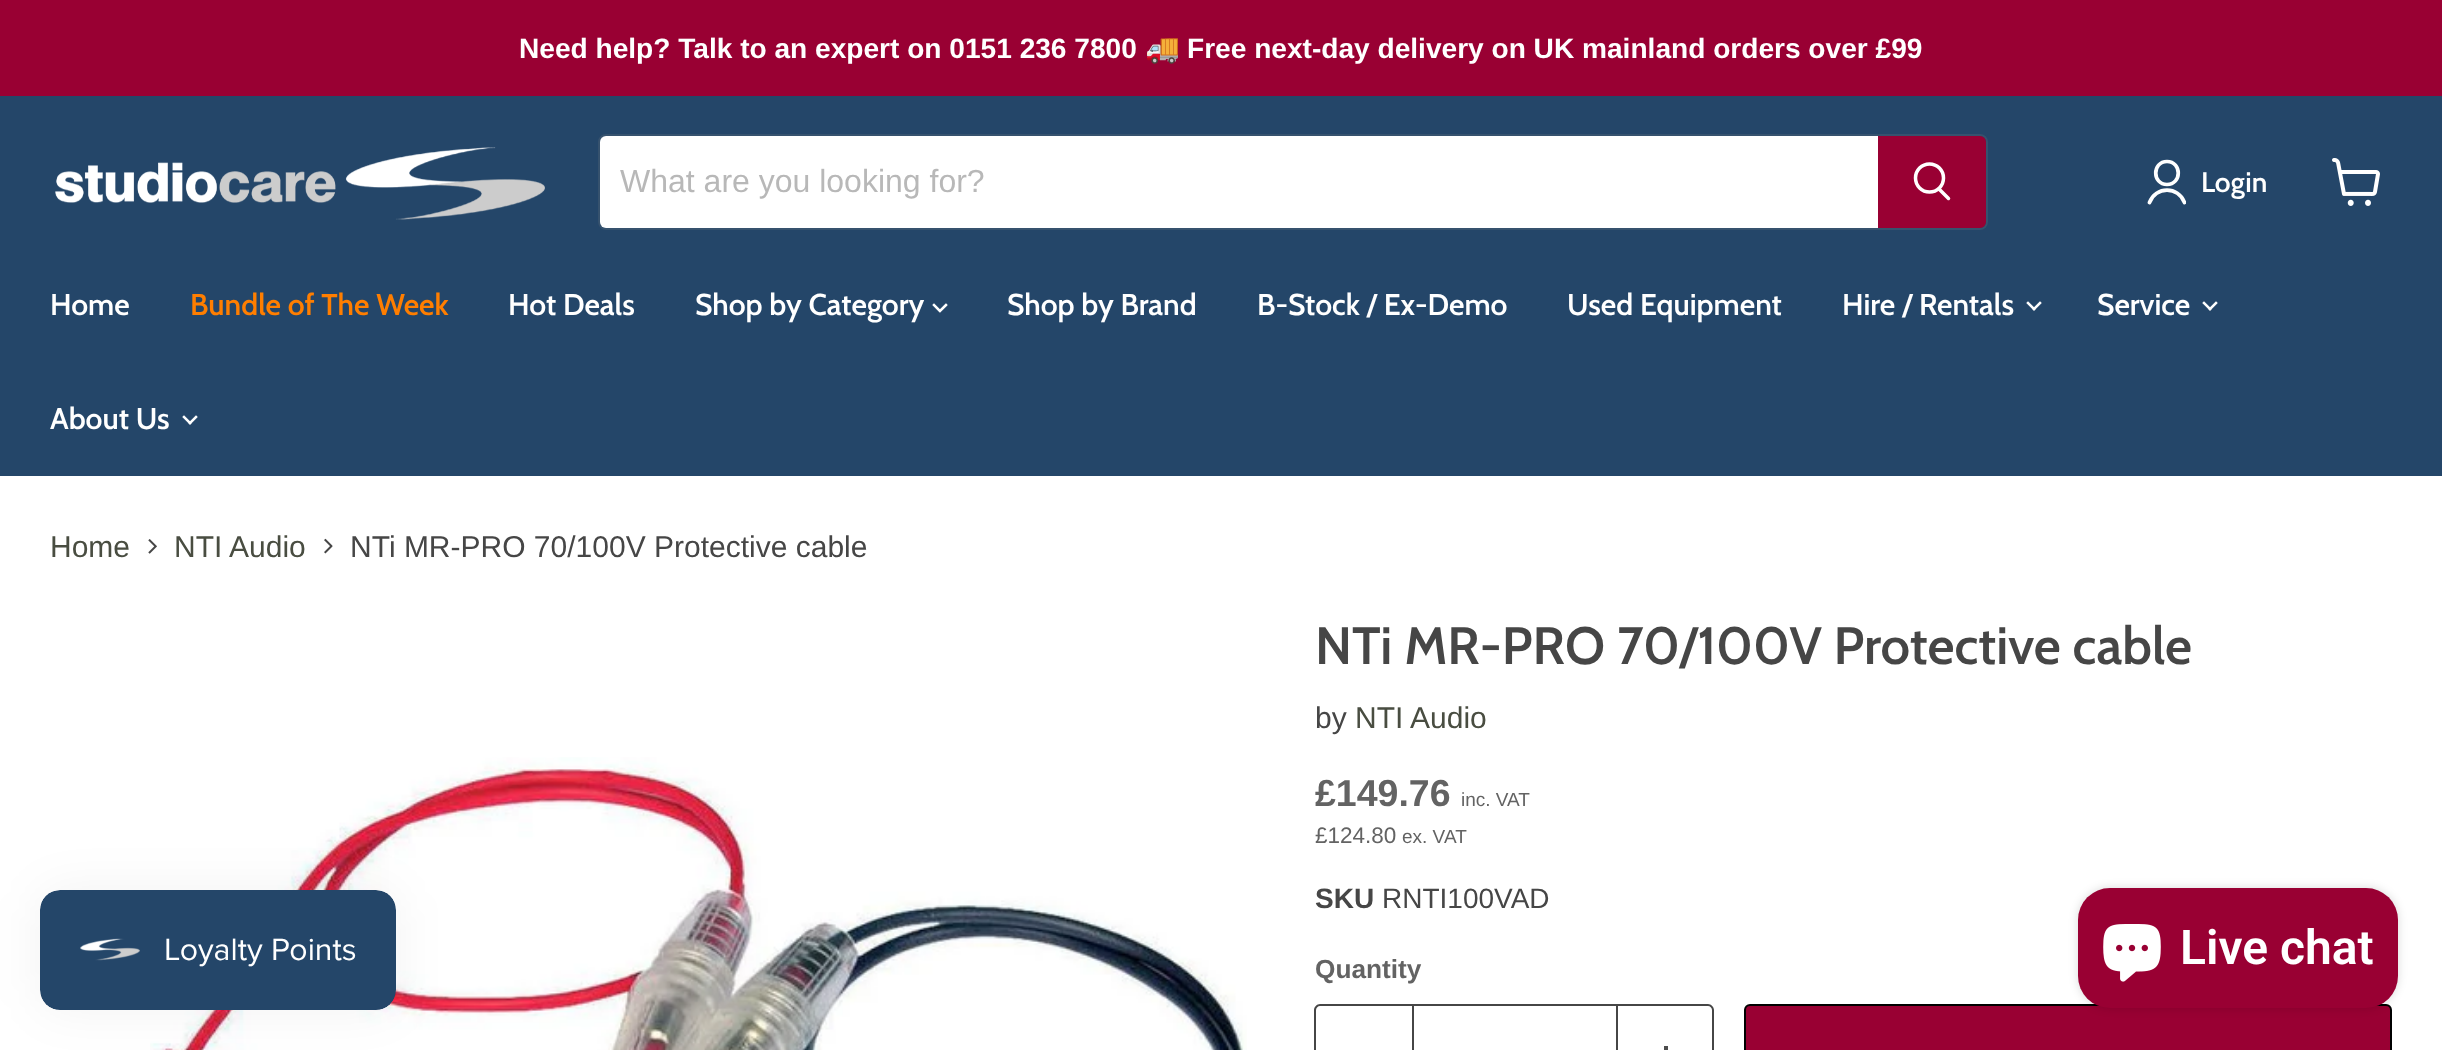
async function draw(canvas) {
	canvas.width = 2442;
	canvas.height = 1050;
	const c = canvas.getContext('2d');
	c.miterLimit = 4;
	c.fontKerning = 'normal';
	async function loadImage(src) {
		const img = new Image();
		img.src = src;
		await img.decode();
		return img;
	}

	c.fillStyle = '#fff';
	c.fillRect(0, 0, 2442, 1050);
	c.fillStyle = '#903';
	c.fillRect(0, 0, 2442, 96);
	c.font = 'bold 28.1px Liberation Sans';
	c.fillStyle = '#fff';
	c.fillText('Need help? Talk to an expert on 0151 236 7800', 519, 58);
	c.font = 'bold 28.1px Noto Color Emoji';
	c.fillText('🚚', 1145, 58);
	c.font = 'bold 28.1px Liberation Sans';
	c.fillText('Free next-day delivery on UK mainland orders over £99', 1187, 58);
	c.fillStyle = '#244669';
	c.fillRect(0, 96, 2442, 380);
	c.drawImage(await loadImage('img1.png'), 55, 147, 490, 73);
	c.beginPath();
	c.roundRect(599, 135, 1388, 94, 7);
	c.strokeStyle = '#80808033';
	c.lineWidth = 2;
	c.stroke();
	c.fillStyle = '#fff';
	c.beginPath();
	c.roundRect(600, 136, 1278, 92, [6, 0, 0, 6]);
	c.fill();
	c.font = '32px Liberation Sans';
	c.fillStyle = '#b8b8b8';
	c.fillText('What are you looking for?', 620, 192);
	c.fillStyle = '#903';
	c.beginPath();
	c.roundRect(1879, 137, 106, 90, [0, 5, 5, 0]);
	c.fill();
	c.strokeStyle = '#903';
	c.stroke();
	c.beginPath();
	c.moveTo(1948.5, 198.5);
	c.lineTo(1939, 189);
	c.strokeStyle = '#fff';
	c.lineWidth = 3.5;
	c.lineCap = 'round';
	c.stroke();
	c.beginPath();
	c.arc(1929.5, 178, 14, 0, 2 * Math.PI);
	c.stroke();
	c.beginPath();
	c.moveTo(2167, 184.5);
	c.bezierCurveTo(2182, 184.5, 2182, 161.5, 2167, 161.5);
	c.bezierCurveTo(2152, 161.5, 2152, 184.5, 2167, 184.5);
	c.closePath();
	c.lineWidth = 3.7;
	c.lineJoin = 'round';
	c.stroke();
	c.save();
	c.beginPath();
	c.rect(2146, 158, 40, 48);
	c.clip();
	c.beginPath();
	c.moveTo(2184.5, 202.5);
	c.bezierCurveTo(2178.5, 186, 2155.5, 186, 2149.5, 202.5);
	c.stroke();
	c.restore();
	c.font = '600 28.1px Cabin';
	c.fillStyle = '#fff';
	c.fillText('Login', 2201, 192);
	c.drawImage(await loadImage('img2.png'), 2332, 158, 48, 48);
	c.font = '600 30px Cabin';
	c.fillText('Home', 50, 315);
	c.fillStyle = '#ff7e00';
	c.fillText('Bundle of The Week', 190, 315);
	c.fillStyle = '#fff';
	c.fillText('Hot Deals', 508, 315);
	c.fillText('Shop by Category', 695, 315);
	c.beginPath();
	c.moveTo(940, 311);
	c.lineTo(946, 305);
	c.moveTo(940, 311);
	c.lineTo(934, 305);
	c.lineWidth = 2.5;
	c.lineCap = 'square';
	c.lineJoin = 'miter';
	c.stroke();
	for (const [text, x, y] of [
		['Shop by Brand', 1007, 315],
		['B-Stock / Ex-Demo', 1257, 315],
		['Used Equipment', 1567, 315],
		['Hire / Rentals', 1842, 315],
	]) {
		c.fillText(text, x, y);
	}
	c.drawImage(await loadImage('img3.png'), 2026, 301, 16, 10);
	c.fillText('Service', 2097, 315);
	c.drawImage(await loadImage('img3.png'), 2202, 301, 16, 10);
	c.fillText('About Us', 50, 429);
	c.drawImage(await loadImage('img3.png'), 182, 415, 16, 10);
	c.font = '30px Liberation Sans';
	c.fillStyle = '#494d41';
	c.fillText('Home', 50, 557);
	c.drawImage(await loadImage('img4.png'), 148, 539, 9, 15);
	c.fillText('NTI Audio', 174, 557);
	c.drawImage(await loadImage('img5.png'), 324, 538, 9, 16);
	c.fillStyle = '#464646';
	c.fillText('NTi MR-PRO 70/100V Protective cable', 350, 557);
	c.drawImage(await loadImage('img6.png'), 150, 757, 1097, 293);
	c.font = '600 52.5px Cabin';
	c.fillText('NTi MR-PRO 70/100V Protective cable', 1315, 664);
	c.font = '30px Liberation Sans';
	c.fillText('by', 1315, 728);
	c.fillStyle = '#494d41';
	c.fillText('NTI Audio', 1355, 728);
	c.font = 'bold 37.5px Liberation Sans';
	c.fillStyle = '#636363';
	c.fillText('£149.76', 1315, 806);
	c.font = '19px Liberation Sans';
	c.fillText('inc. VAT', 1461, 806);
	c.font = '22.5px Liberation Sans';
	c.fillText('£124.80', 1315, 843);
	c.font = '19px Liberation Sans';
	c.fillText('ex. VAT', 1402, 843);
	c.font = 'bold 28px Liberation Sans';
	c.fillStyle = '#464646';
	c.fillText('SKU', 1315, 908);
	c.font = '28px Liberation Sans';
	c.fillText('RNTI100VAD', 1382, 908);
	c.font = 'bold 26.25px Liberation Sans';
	c.fillStyle = '#636363';
	c.fillText('Quantity', 1315, 978);
	c.fillStyle = '#464646';
	c.beginPath();
	c.moveTo(1320, 1004);
	c.lineTo(1412, 1004);
	c.lineTo(1412, 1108);
	c.lineTo(1320, 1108);
	c.bezierCurveTo(1317, 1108, 1314, 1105, 1314, 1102);
	c.lineTo(1314, 1010);
	c.bezierCurveTo(1314, 1007, 1317, 1004, 1320, 1004);
	c.closePath();
	c.moveTo(1320, 1006);
	c.lineTo(1412, 1006);
	c.lineTo(1412, 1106);
	c.lineTo(1320, 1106);
	c.bezierCurveTo(1318, 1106, 1316, 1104, 1316, 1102);
	c.lineTo(1316, 1010);
	c.bezierCurveTo(1316, 1008, 1318, 1006, 1320, 1006);
	c.closePath();
	c.fill('evenodd');
	c.strokeStyle = '#464646';
	c.lineWidth = 2;
	c.strokeRect(1413, 1005, 204, 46);
	c.beginPath();
	c.moveTo(1618, 1004);
	c.lineTo(1708, 1004);
	c.bezierCurveTo(1711, 1004, 1714, 1007, 1714, 1010);
	c.lineTo(1714, 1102);
	c.bezierCurveTo(1714, 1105, 1711, 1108, 1708, 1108);
	c.lineTo(1618, 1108);
	c.closePath();
	c.moveTo(1618, 1006);
	c.lineTo(1708, 1006);
	c.bezierCurveTo(1710, 1006, 1712, 1008, 1712, 1010);
	c.lineTo(1712, 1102);
	c.bezierCurveTo(1712, 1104, 1710, 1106, 1708, 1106);
	c.lineTo(1618, 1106);
	c.closePath();
	c.fill('evenodd');
	c.fillStyle = '#4d4d4d';
	c.fillRect(1664, 1046, 4, 4);
	c.fillStyle = '#903';
	c.beginPath();
	c.roundRect(1745, 1005, 646, 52, 5);
	c.fill();
	c.strokeStyle = '#000';
	c.stroke();
	c.fillStyle = '#0000000d';
	c.filter = 'blur(25px)';
	c.beginPath();
	c.roundRect(40, 890, 356, 120, 20);
	c.fill();
	c.filter = 'none';
	c.drawImage(await loadImage('img7.png'), 40, 890, 356, 120);
	c.fillStyle = '#00000026';
	c.filter = 'blur(5px)';
	c.beginPath();
	c.roundRect(2078, 888, 320, 120, 32);
	c.fill();
	c.filter = 'none';
	c.fillStyle = '#903';
	c.beginPath();
	c.roundRect(2078, 888, 320, 120, 32);
	c.fill();
	c.drawImage(await loadImage('img8.png'), 2103, 924, 58, 58);
	c.font = '600 48px Roboto';
	c.fillStyle = '#fff';
	c.fillText('Live chat', 2180, 964);
}

draw(document.querySelector('canvas'));
